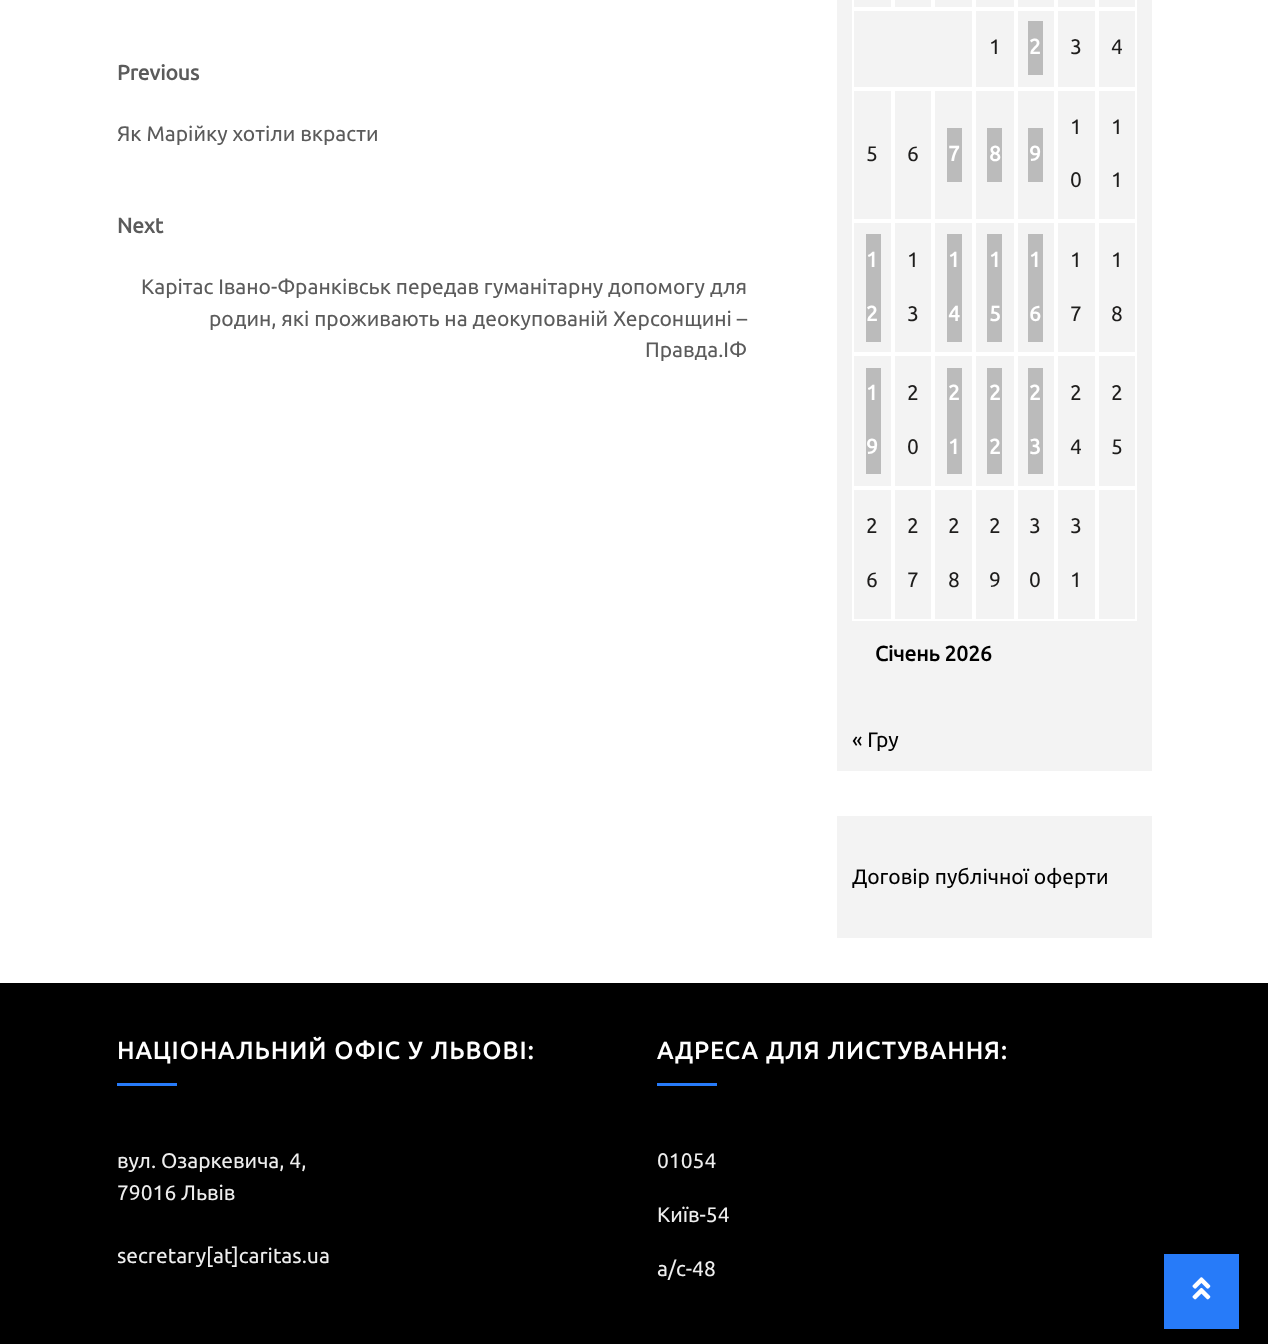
async function draw(canvas) {
	canvas.width = 1268;
	canvas.height = 1344;
	const c = canvas.getContext('2d');
	c.miterLimit = 4;
	c.fontKerning = 'normal';
	async function loadImage(src) {
		const img = new Image();
		img.src = src;
		await img.decode();
		return img;
	}

	c.fillStyle = '#fff';
	c.fillRect(0, 0, 1268, 1344);
	c.font = 'bold 21px Ubuntu';
	c.fillStyle = '#5b5b5b';
	c.fillText('Previous', 117, 80);
	c.font = '21px Ubuntu';
	c.fillText('Як Марійку хотіли вкрасти', 117, 141);
	c.font = 'bold 21px Ubuntu';
	c.fillText('Next', 117, 233);
	c.font = '21px Ubuntu';
	for (const [text, x, y] of [
		['Карітас Івано-Франківськ передав гуманітарну допомогу для', 141, 294],
		['родин, які проживають на деокупованій Херсонщині –', 209, 326],
		['Правда.ІФ', 645, 357],
	]) {
		c.fillText(text, x, y);
	}
	c.fillStyle = '#f3f3f3';
	c.fillRect(837, 0, 315, 771);
	c.strokeStyle = '#fff';
	c.lineWidth = 2;
	c.strokeRect(853, -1, 39, 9);
	c.strokeRect(894, -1, 38, 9);
	c.strokeRect(934, -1, 39, 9);
	c.strokeRect(975, -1, 40, 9);
	c.strokeRect(1017, -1, 38, 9);
	c.strokeRect(1057, -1, 39, 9);
	c.strokeRect(1098, -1, 38, 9);
	c.strokeRect(853, 10, 120, 78);
	c.strokeRect(975, 10, 40, 78);
	c.fillStyle = '#1e1d1c';
	c.fillText('1', 989, 54);
	c.strokeRect(1017, 10, 38, 78);
	c.fillStyle = '#bbb';
	c.fillRect(1028, 21, 15, 54);
	c.font = 'bold 21px Ubuntu';
	c.fillStyle = '#fff';
	c.fillText('2', 1029, 54);
	c.strokeRect(1057, 10, 39, 78);
	c.font = '21px Ubuntu';
	c.fillStyle = '#1e1d1c';
	c.fillText('3', 1070, 54);
	c.strokeRect(1098, 10, 38, 78);
	c.fillText('4', 1111, 54);
	c.strokeRect(853, 90, 39, 130);
	c.fillText('5', 866, 161);
	c.strokeRect(894, 90, 38, 130);
	c.fillText('6', 907, 161);
	c.strokeRect(934, 90, 39, 130);
	c.fillStyle = '#bbb';
	c.fillRect(947, 128, 15, 54);
	c.font = 'bold 21px Ubuntu';
	c.fillStyle = '#fff';
	c.fillText('7', 948, 161);
	c.strokeRect(975, 90, 40, 130);
	c.fillStyle = '#bbb';
	c.fillRect(987, 128, 15, 54);
	c.fillStyle = '#fff';
	c.fillText('8', 989, 161);
	c.strokeRect(1017, 90, 38, 130);
	c.fillStyle = '#bbb';
	c.fillRect(1028, 128, 15, 54);
	c.fillStyle = '#fff';
	c.fillText('9', 1029, 161);
	c.strokeRect(1057, 90, 39, 130);
	c.font = '21px Ubuntu';
	c.fillStyle = '#1e1d1c';
	c.fillText('1', 1070, 134);
	c.fillText('0', 1070, 187);
	c.strokeRect(1098, 90, 38, 130);
	c.fillText('1', 1111, 134);
	c.fillText('1', 1111, 187);
	c.strokeRect(853, 222, 39, 131);
	c.fillStyle = '#bbb';
	c.fillRect(866, 234, 15, 108);
	c.font = 'bold 21px Ubuntu';
	c.fillStyle = '#fff';
	c.fillText('1', 866, 267);
	c.fillText('2', 866, 321);
	c.strokeRect(894, 222, 38, 131);
	c.font = '21px Ubuntu';
	c.fillStyle = '#1e1d1c';
	c.fillText('1', 907, 267);
	c.fillText('3', 907, 321);
	c.strokeRect(934, 222, 39, 131);
	c.fillStyle = '#bbb';
	c.fillRect(947, 234, 15, 108);
	c.font = 'bold 21px Ubuntu';
	c.fillStyle = '#fff';
	c.fillText('1', 948, 267);
	c.fillText('4', 948, 321);
	c.strokeRect(975, 222, 40, 131);
	c.fillStyle = '#bbb';
	c.fillRect(987, 234, 15, 108);
	c.fillStyle = '#fff';
	c.fillText('1', 989, 267);
	c.fillText('5', 989, 321);
	c.strokeRect(1017, 222, 38, 131);
	c.fillStyle = '#bbb';
	c.fillRect(1028, 234, 15, 108);
	c.fillStyle = '#fff';
	c.fillText('1', 1029, 267);
	c.fillText('6', 1029, 321);
	c.strokeRect(1057, 222, 39, 131);
	c.font = '21px Ubuntu';
	c.fillStyle = '#1e1d1c';
	c.fillText('1', 1070, 267);
	c.fillText('7', 1070, 321);
	c.strokeRect(1098, 222, 38, 131);
	c.fillText('1', 1111, 267);
	c.fillText('8', 1111, 321);
	c.strokeRect(853, 355, 39, 132);
	c.fillStyle = '#bbb';
	c.fillRect(866, 368, 15, 106);
	c.font = 'bold 21px Ubuntu';
	c.fillStyle = '#fff';
	c.fillText('1', 866, 400);
	c.fillText('9', 866, 454);
	c.strokeRect(894, 355, 38, 132);
	c.font = '21px Ubuntu';
	c.fillStyle = '#1e1d1c';
	c.fillText('2', 907, 400);
	c.fillText('0', 907, 454);
	c.strokeRect(934, 355, 39, 132);
	c.fillStyle = '#bbb';
	c.fillRect(947, 368, 15, 106);
	c.font = 'bold 21px Ubuntu';
	c.fillStyle = '#fff';
	c.fillText('2', 948, 400);
	c.fillText('1', 948, 454);
	c.strokeRect(975, 355, 40, 132);
	c.fillStyle = '#bbb';
	c.fillRect(987, 368, 15, 106);
	c.fillStyle = '#fff';
	c.fillText('2', 989, 400);
	c.fillText('2', 989, 454);
	c.strokeRect(1017, 355, 38, 132);
	c.fillStyle = '#bbb';
	c.fillRect(1028, 368, 15, 106);
	c.fillStyle = '#fff';
	c.fillText('2', 1029, 400);
	c.fillText('3', 1029, 454);
	c.strokeRect(1057, 355, 39, 132);
	c.font = '21px Ubuntu';
	c.fillStyle = '#1e1d1c';
	c.fillText('2', 1070, 400);
	c.fillText('4', 1070, 454);
	c.strokeRect(1098, 355, 38, 132);
	c.fillText('2', 1111, 400);
	c.fillText('5', 1111, 454);
	c.strokeRect(853, 489, 39, 131);
	c.fillText('2', 866, 533);
	c.fillText('6', 866, 587);
	c.strokeRect(894, 489, 38, 131);
	c.fillText('2', 907, 533);
	c.fillText('7', 907, 587);
	c.strokeRect(934, 489, 39, 131);
	c.fillText('2', 948, 533);
	c.fillText('8', 948, 587);
	c.strokeRect(975, 489, 40, 131);
	c.fillText('2', 989, 533);
	c.fillText('9', 989, 587);
	c.strokeRect(1017, 489, 38, 131);
	c.fillText('3', 1029, 533);
	c.fillText('0', 1029, 587);
	c.strokeRect(1057, 489, 39, 131);
	c.fillText('3', 1070, 533);
	c.fillText('1', 1070, 587);
	c.strokeRect(1098, 489, 38, 131);
	c.font = 'bold 21px Ubuntu';
	c.fillStyle = '#000';
	c.fillText('Січень 2026', 875, 661);
	c.font = '21px Ubuntu';
	c.fillText('« Гру', 852, 747);
	c.fillStyle = '#f3f3f3';
	c.fillRect(837, 816, 315, 122);
	c.fillStyle = '#000';
	c.fillText('Договір публічної оферти', 852, 884);
	c.fillRect(0, 983, 1268, 361);
	c.letterSpacing = '1.5px';
	c.font = 'bold 24px Ubuntu';
	c.fillStyle = '#fff';
	c.fillText('НАЦІОНАЛЬНИЙ ОФІС У ЛЬВОВІ:', 117, 1059);
	c.fillStyle = '#277bf9';
	c.fillRect(117, 1083, 60, 3);
	c.letterSpacing = '0px';
	c.font = '21px Ubuntu';
	c.fillStyle = '#eee';
	for (const [text, x, y] of [
		['вул. Озаркевича, 4,', 117, 1168],
		['79016 Львів', 117, 1200],
		['secretary[at]caritas.ua', 117, 1263],
	]) {
		c.fillText(text, x, y);
	}
	c.letterSpacing = '1.5px';
	c.font = 'bold 24px Ubuntu';
	c.fillStyle = '#fff';
	c.fillText('АДРЕСА ДЛЯ ЛИСТУВАННЯ:', 657, 1059);
	c.fillStyle = '#277bf9';
	c.fillRect(657, 1083, 60, 3);
	c.letterSpacing = '0px';
	c.font = '21px Ubuntu';
	c.fillStyle = '#eee';
	for (const [text, x, y] of [
		['01054', 657, 1168],
		['Київ-54', 657, 1222],
		['а/с-48', 657, 1276],
	]) {
		c.fillText(text, x, y);
	}
	c.fillStyle = '#277bf9';
	c.fillRect(1164, 1254, 75, 75);
	c.drawImage(await loadImage('img1.png'), 1192, 1277, 19, 23);
}

draw(document.querySelector('canvas'));
